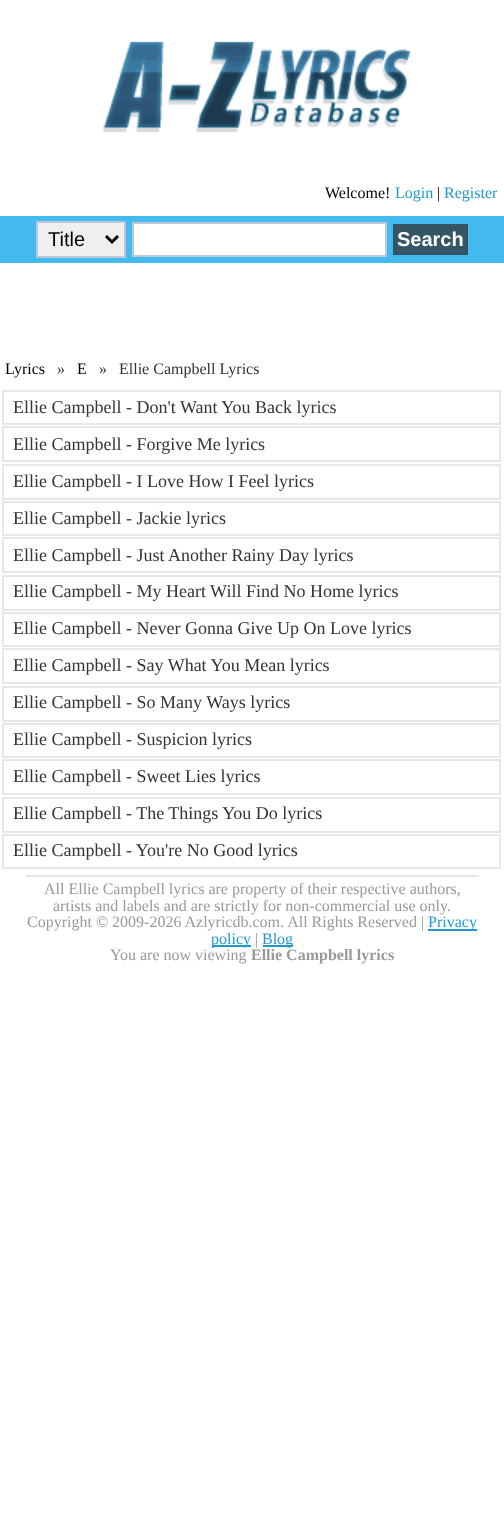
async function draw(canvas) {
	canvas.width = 504;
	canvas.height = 1521;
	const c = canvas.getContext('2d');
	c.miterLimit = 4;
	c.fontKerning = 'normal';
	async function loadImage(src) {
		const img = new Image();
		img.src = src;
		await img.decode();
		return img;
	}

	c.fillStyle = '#fff';
	c.fillRect(0, 0, 504, 1521);
	c.drawImage(await loadImage('img1.png'), 102, 41, 310, 92);
	c.font = '16px Liberation Serif';
	c.fillStyle = '#000';
	c.fillText('Welcome!', 325, 198);
	c.fillStyle = '#29c';
	c.fillText('Login', 395, 198);
	c.fillStyle = '#000';
	c.fillText('|', 437, 198);
	c.fillStyle = '#29c';
	c.fillText('Register', 444, 198);
	c.fillStyle = '#4be';
	c.fillRect(0, 216, 504, 47);
	c.fillStyle = '#efefef';
	c.beginPath();
	c.rect(37, 222, 88, 35);
	c.fill();
	c.strokeStyle = '#bdc7d8';
	c.lineWidth = 2;
	c.stroke();
	c.beginPath();
	c.moveTo(106, 236);
	c.lineTo(112, 242);
	c.lineTo(118, 236);
	c.strokeStyle = '#000';
	c.lineWidth = 3;
	c.stroke();
	c.font = '20px Liberation Sans';
	c.fillStyle = '#000';
	c.fillText('Title', 48, 246);
	c.fillStyle = '#fff';
	c.beginPath();
	c.rect(133, 223, 253, 33);
	c.fill();
	c.strokeStyle = '#bdc7d8';
	c.lineWidth = 2;
	c.stroke();
	c.fillStyle = '#356';
	c.fillRect(393, 224, 75, 31);
	c.font = 'bold 20px Liberation Sans';
	c.fillStyle = '#fff';
	c.fillText('Search', 397, 246);
	c.font = '16px Liberation Serif';
	c.fillStyle = '#000';
	c.fillText('Lyrics', 5, 374);
	c.fillStyle = '#333';
	c.fillText('»', 57, 374);
	c.fillStyle = '#000';
	c.fillText('E', 77, 374);
	c.fillStyle = '#333';
	c.fillText('»   Ellie Campbell Lyrics', 99, 374);
	c.strokeStyle = '#e7e7e7';
	c.strokeRect(3, 391, 497, 33);
	c.font = '18px Liberation Serif';
	c.fillText('Ellie Campbell - Don\'t Want You Back lyrics', 13, 413);
	c.strokeRect(3, 427, 497, 34);
	c.fillText('Ellie Campbell - Forgive Me lyrics', 13, 450);
	c.strokeRect(3, 465, 497, 34);
	c.fillText('Ellie Campbell - I Love How I Feel lyrics', 13, 487);
	c.strokeRect(3, 502, 497, 33);
	c.fillText('Ellie Campbell - Jackie lyrics', 13, 524);
	c.strokeRect(3, 538, 497, 34);
	c.fillText('Ellie Campbell - Just Another Rainy Day lyrics', 13, 561);
	c.strokeRect(3, 576, 497, 34);
	c.fillText('Ellie Campbell - My Heart Will Find No Home lyrics', 13, 597);
	c.strokeRect(3, 613, 497, 33);
	c.fillText('Ellie Campbell - Never Gonna Give Up On Love lyrics', 13, 634);
	c.strokeRect(3, 649, 497, 34);
	c.fillText('Ellie Campbell - Say What You Mean lyrics', 13, 671);
	c.strokeRect(3, 687, 497, 34);
	c.fillText('Ellie Campbell - So Many Ways lyrics', 13, 708);
	c.strokeRect(3, 724, 497, 33);
	c.fillText('Ellie Campbell - Suspicion lyrics', 13, 745);
	c.strokeRect(3, 760, 497, 34);
	c.fillText('Ellie Campbell - Sweet Lies lyrics', 13, 782);
	c.strokeRect(3, 798, 497, 34);
	c.fillText('Ellie Campbell - The Things You Do lyrics', 13, 819);
	c.strokeRect(3, 835, 497, 33);
	c.fillText('Ellie Campbell - You\'re No Good lyrics', 13, 856);
	c.fillStyle = '#e7e7e7';
	c.fillRect(26, 875, 453, 2);
	c.font = '16px Liberation Serif';
	c.fillStyle = '#999';
	for (const [text, x, y] of [
		['All Ellie Campbell lyrics are property of their respective authors,', 44, 894],
		['artists and labels and are strictly for non-commercial use only.', 53, 911],
		['Copyright © 2009-2026 Azlyricdb.com. All Rights Reserved |', 27, 927],
	]) {
		c.fillText(text, x, y);
	}
	c.fillStyle = '#29c';
	c.fillRect(428, 929, 49, 2);
	c.fillText('Privacy', 428, 927);
	c.fillRect(212, 945, 39, 2);
	c.fillText('policy', 211, 944);
	c.fillStyle = '#999';
	c.fillText('|', 255, 944);
	c.fillStyle = '#29c';
	c.fillRect(263, 945, 30, 2);
	c.fillText('Blog', 262, 944);
	c.fillStyle = '#999';
	c.fillText('You are now viewing', 110, 960);
	c.font = 'bold 16px Liberation Serif';
	c.fillText('Ellie Campbell lyrics', 251, 960);
}

draw(document.querySelector('canvas'));
